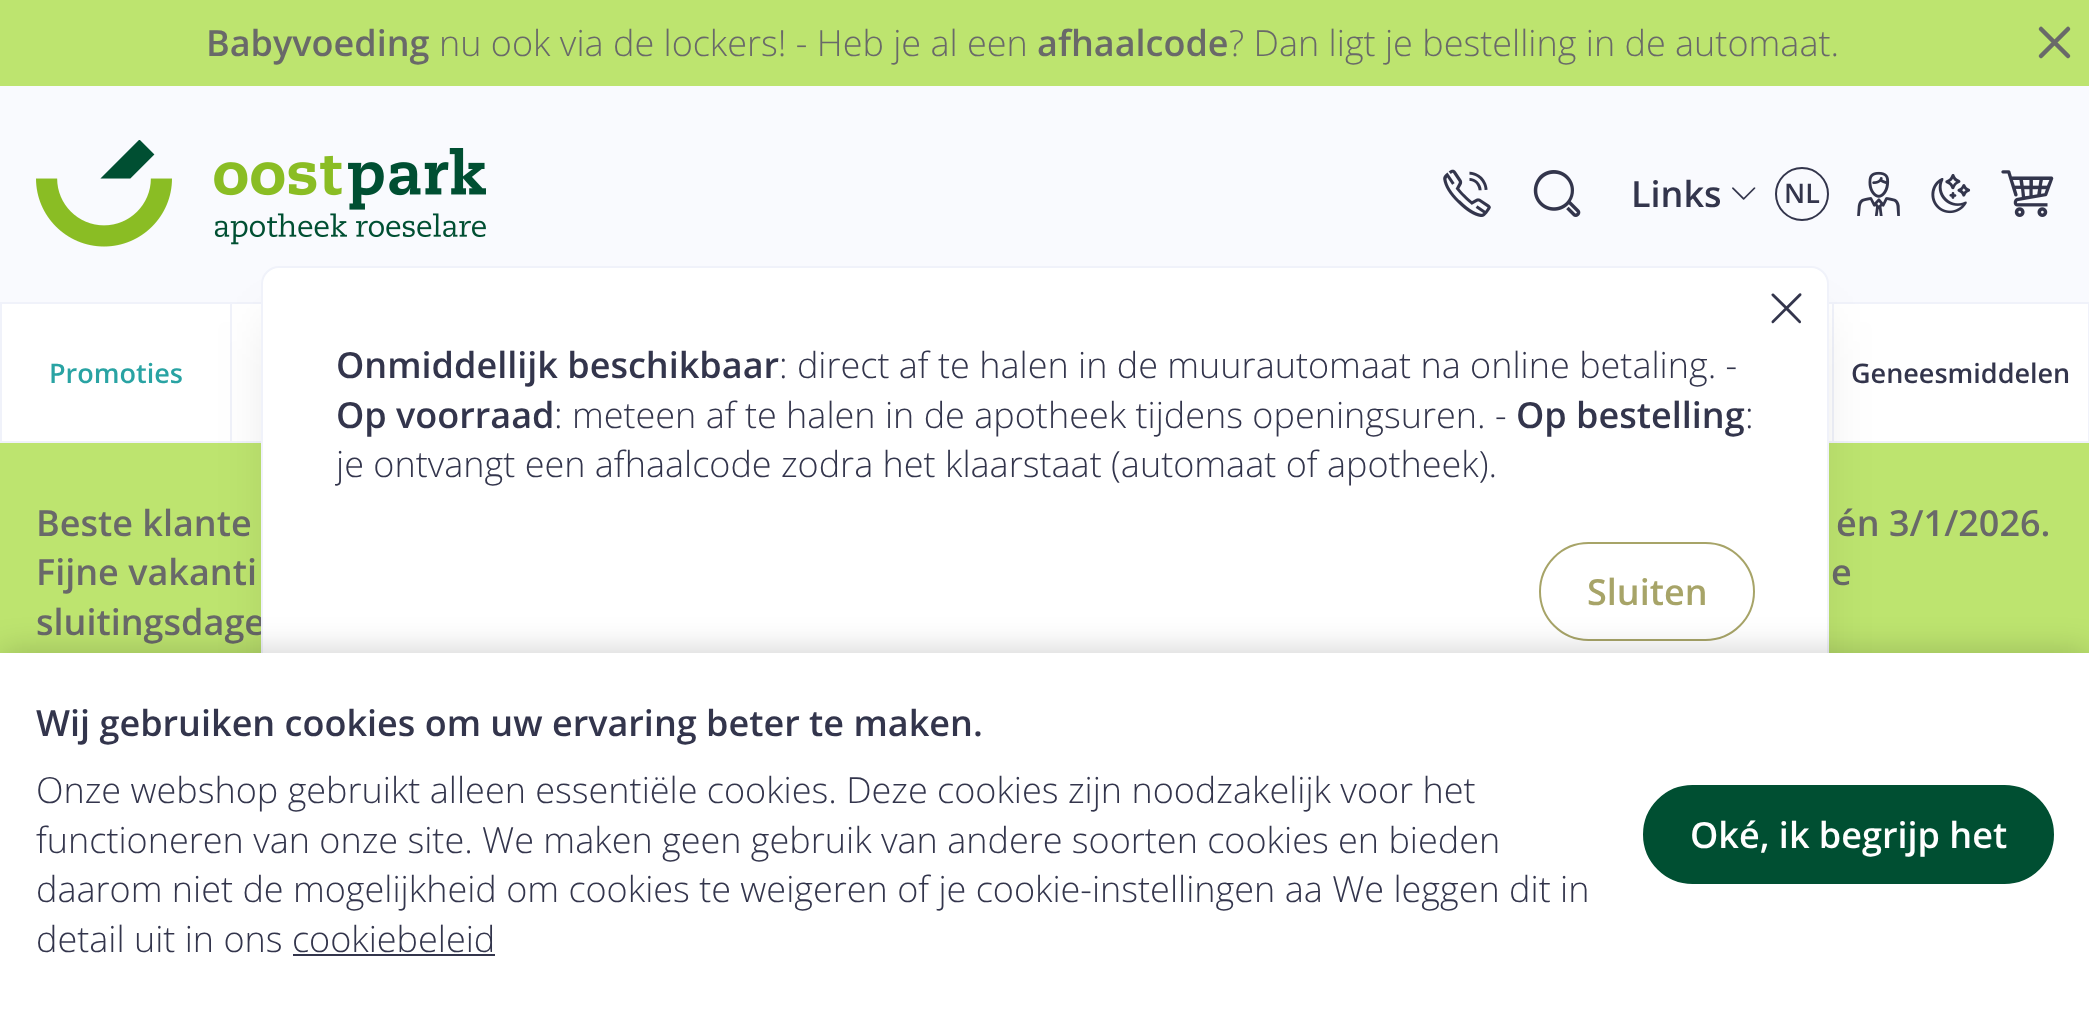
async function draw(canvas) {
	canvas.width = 2089;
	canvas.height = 1017;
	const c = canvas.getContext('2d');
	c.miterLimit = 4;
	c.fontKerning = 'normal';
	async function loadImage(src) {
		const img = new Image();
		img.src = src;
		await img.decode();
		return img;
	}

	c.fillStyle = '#bde46f';
	c.fillRect(0, 0, 2089, 1017);
	c.font = '600 36px Open Sans';
	c.fillStyle = '#696969';
	c.fillText('Babyvoeding', 206, 56);
	c.font = '300 36px Open Sans';
	c.fillText('nu ook via de lockers! - Heb je al een', 439, 56);
	c.font = '600 36px Open Sans';
	c.fillText('afhaalcode', 1037, 56);
	c.font = '300 36px Open Sans';
	c.fillText('? Dan ligt je bestelling in de automaat.', 1229, 56);
	c.beginPath();
	c.moveTo(2041, 56);
	c.lineTo(2068, 29);
	c.moveTo(2041, 29);
	c.lineTo(2068, 56);
	c.strokeStyle = '#696969';
	c.lineWidth = 4.5;
	c.lineCap = 'round';
	c.lineJoin = 'round';
	c.stroke();
	c.fillStyle = '#f0f2fa';
	c.fillRect(0, 441, 2089, 2);
	c.fillStyle = '#f9fafe';
	c.fillRect(0, 86, 2089, 216);
	c.drawImage(await loadImage('img1.png'), 36, 140, 450, 107);
	c.drawImage(await loadImage('img2.png'), 1443, 169, 48, 48);
	c.drawImage(await loadImage('img3.png'), 1533, 170, 48, 47);
	c.font = '600 36px Open Sans';
	c.fillStyle = '#33354c';
	c.fillText('Links', 1631, 207);
	c.drawImage(await loadImage('img4.png'), 1732, 187, 24, 13);
	c.beginPath();
	c.arc(1802, 194, 26, 0, 2 * Math.PI);
	c.strokeStyle = '#33354c';
	c.lineWidth = 2;
	c.stroke();
	c.font = '600 27px Open Sans';
	c.fillText('NL', 1784, 203);
	c.drawImage(await loadImage('img5.png'), 1857, 171, 43, 45);
	c.drawImage(await loadImage('img6.png'), 1931, 174, 40, 40);
	c.drawImage(await loadImage('img7.png'), 2001, 170, 53, 47);
	for (const [x, y, w, h, color] of [
		[2, 304, 2086, 137, '#fff'],
		[0, 302, 2089, 2, '#f0f2fa'],
		[2088, 304, 1, 137, '#f0f2fa'],
		[0, 304, 2, 137, '#f0f2fa'],
		[230, 304, 2, 137, '#f0f2fa'],
	]) {
		c.fillStyle = color;
		c.fillRect(x, y, w, h);
	}
	c.fillStyle = '#29a3a3';
	c.fillText('Promoties', 49, 383);
	c.fillStyle = '#f0f2fa';
	c.fillRect(1832, 304, 2, 137);
	c.fillStyle = '#33354c';
	c.fillText('Geneesmiddelen', 1851, 383);
	c.font = '600 36px Open Sans';
	c.fillStyle = '#696969';
	for (const [text, x, y] of [
		['Beste klante', 36, 536],
		['én 3/1/2026.', 1836, 536],
		['Fijne vakanti', 36, 585],
		['e', 1831, 585],
		['sluitingsdage', 36, 635],
	]) {
		c.fillText(text, x, y);
	}
	c.fillStyle = '#0000001a';
	c.filter = 'blur(28px)';
	c.beginPath();
	c.roundRect(272, 322, 1546, 463, 7);
	c.fill();
	c.filter = 'none';
	c.fillStyle = '#fff';
	c.beginPath();
	c.roundRect(262, 267, 1566, 484, 17);
	c.fill();
	c.strokeStyle = '#f0f2fa';
	c.lineJoin = 'miter';
	c.stroke();
	c.drawImage(await loadImage('img8.png'), 1771, 293, 31, 31);
	c.fillStyle = '#33354c';
	c.fillText('Onmiddellijk beschikbaar', 336, 378);
	c.font = '300 36px Open Sans';
	c.fillText(': direct af te halen in de muurautomaat na online betaling. -', 779, 378);
	c.font = '600 36px Open Sans';
	c.fillText('Op voorraad', 336, 428);
	c.font = '300 36px Open Sans';
	c.fillText(': meteen af te halen in de apotheek tijdens openingsuren. -', 554, 428);
	c.font = '600 36px Open Sans';
	c.fillText('Op bestelling', 1516, 428);
	c.font = '300 36px Open Sans';
	c.fillText(':', 1745, 428);
	c.save();
	c.beginPath();
	c.rect(335, 340, 1420, 148);
	c.clip();
	c.fillText('je ontvangt een afhaalcode zodra het klaarstaat (automaat of apotheek).', 336, 477);
	c.restore();
	c.beginPath();
	c.roundRect(1540, 543, 214, 97, 48.5);
	c.strokeStyle = '#a7a468';
	c.stroke();
	c.font = '600 36px Open Sans';
	c.fillStyle = '#a7a468';
	c.fillText('Sluiten', 1587, 605);
	c.fillStyle = '#00000033';
	c.filter = 'blur(17px)';
	c.beginPath();
	c.rect(0, 653, 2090, 364);
	c.fill();
	c.filter = 'none';
	c.fillStyle = '#fff';
	c.fillRect(0, 653, 2089, 364);
	c.fillStyle = '#33354c';
	c.fillText('Wij gebruiken cookies om uw ervaring beter te maken.', 36, 736);
	c.font = '300 36px Open Sans';
	for (const [text, x, y] of [
		['Onze webshop gebruikt alleen essentiële cookies. Deze cookies zijn noodzakelijk voor het', 36, 803],
		['functioneren van onze site. We maken geen gebruik van andere soorten cookies en bieden', 36, 853],
		['daarom niet de mogelijkheid om cookies te weigeren of je cookie-instellingen aa We leggen dit in', 36, 902],
		['detail uit in ons cookiebeleid', 36, 952],
	]) {
		c.fillText(text, x, y);
	}
	c.fillRect(293, 954, 202, 2);
	c.fillStyle = '#004f32';
	c.beginPath();
	c.roundRect(1644, 786, 409, 97, 48.5);
	c.fill();
	c.strokeStyle = '#004f32';
	c.stroke();
	c.font = '600 36px Open Sans';
	c.fillStyle = '#fff';
	c.fillText('Oké, ik begrijp het', 1690, 848);
}

draw(document.querySelector('canvas'));
